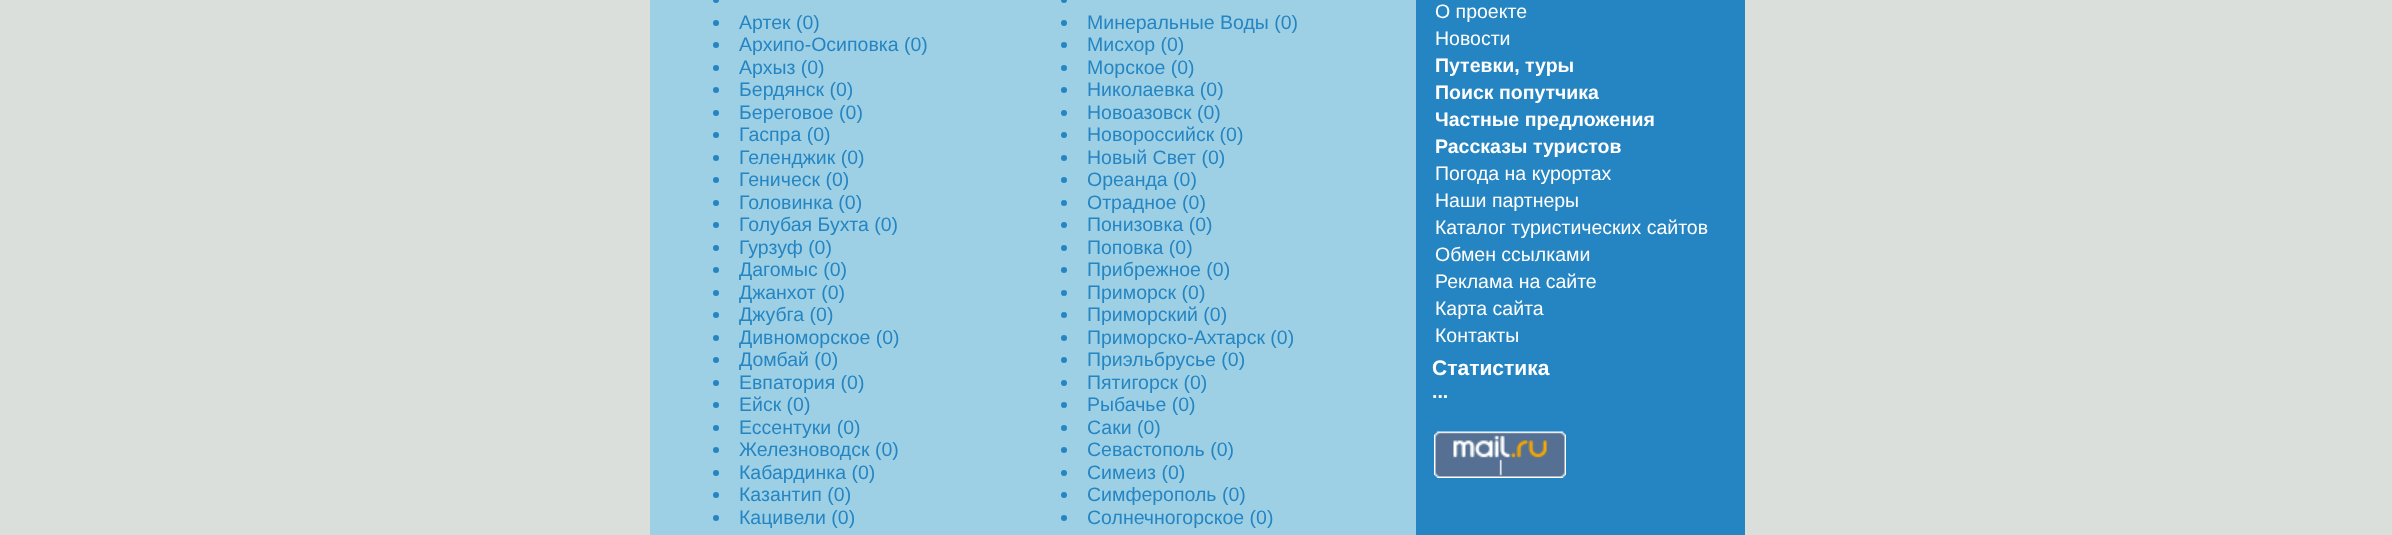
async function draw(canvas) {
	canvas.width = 2392;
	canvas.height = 535;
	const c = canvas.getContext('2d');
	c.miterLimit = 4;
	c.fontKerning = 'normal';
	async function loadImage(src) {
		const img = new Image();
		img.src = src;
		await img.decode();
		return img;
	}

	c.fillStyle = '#dadfdb';
	c.fillRect(0, 0, 2392, 535);
	c.fillStyle = '#9dd0e5';
	c.fillRect(650, 0, 766, 535);
	c.fillStyle = '#2585c2';
	c.beginPath();
	c.arc(716, 0, 3, 0, 2 * Math.PI);
	c.fill();
	c.beginPath();
	c.arc(716, 23, 3, 0, 2 * Math.PI);
	c.fill();
	c.font = '19.5px Liberation Sans';
	c.fillText('Артек (0)', 739, 29);
	c.beginPath();
	c.arc(716, 45, 3, 0, 2 * Math.PI);
	c.fill();
	c.fillText('Архипо-Осиповка (0)', 739, 51);
	c.beginPath();
	c.arc(716, 68, 3, 0, 2 * Math.PI);
	c.fill();
	c.fillText('Архыз (0)', 739, 74);
	c.beginPath();
	c.arc(716, 90, 3, 0, 2 * Math.PI);
	c.fill();
	c.fillText('Бердянск (0)', 739, 96);
	c.beginPath();
	c.arc(716, 113, 3, 0, 2 * Math.PI);
	c.fill();
	c.fillText('Береговое (0)', 739, 119);
	c.beginPath();
	c.arc(716, 135, 3, 0, 2 * Math.PI);
	c.fill();
	c.fillText('Гаспра (0)', 739, 141);
	c.beginPath();
	c.arc(716, 158, 3, 0, 2 * Math.PI);
	c.fill();
	c.fillText('Геленджик (0)', 739, 164);
	c.beginPath();
	c.arc(716, 180, 3, 0, 2 * Math.PI);
	c.fill();
	c.fillText('Геническ (0)', 739, 186);
	c.beginPath();
	c.arc(716, 203, 3, 0, 2 * Math.PI);
	c.fill();
	c.fillText('Головинка (0)', 739, 209);
	c.beginPath();
	c.arc(716, 225, 3, 0, 2 * Math.PI);
	c.fill();
	c.fillText('Голубая Бухта (0)', 739, 231);
	c.beginPath();
	c.arc(716, 248, 3, 0, 2 * Math.PI);
	c.fill();
	c.fillText('Гурзуф (0)', 739, 254);
	c.beginPath();
	c.arc(716, 270, 3, 0, 2 * Math.PI);
	c.fill();
	c.fillText('Дагомыс (0)', 739, 276);
	c.beginPath();
	c.arc(716, 293, 3, 0, 2 * Math.PI);
	c.fill();
	c.fillText('Джанхот (0)', 739, 299);
	c.beginPath();
	c.arc(716, 315, 3, 0, 2 * Math.PI);
	c.fill();
	c.fillText('Джубга (0)', 739, 321);
	c.beginPath();
	c.arc(716, 338, 3, 0, 2 * Math.PI);
	c.fill();
	c.fillText('Дивноморское (0)', 739, 344);
	c.beginPath();
	c.arc(716, 360, 3, 0, 2 * Math.PI);
	c.fill();
	c.fillText('Домбай (0)', 739, 366);
	c.beginPath();
	c.arc(716, 383, 3, 0, 2 * Math.PI);
	c.fill();
	c.fillText('Евпатория (0)', 739, 389);
	c.beginPath();
	c.arc(716, 405, 3, 0, 2 * Math.PI);
	c.fill();
	c.fillText('Ейск (0)', 739, 411);
	c.beginPath();
	c.arc(716, 428, 3, 0, 2 * Math.PI);
	c.fill();
	c.fillText('Ессентуки (0)', 739, 434);
	c.beginPath();
	c.arc(716, 450, 3, 0, 2 * Math.PI);
	c.fill();
	c.fillText('Железноводск (0)', 739, 456);
	c.beginPath();
	c.arc(716, 473, 3, 0, 2 * Math.PI);
	c.fill();
	c.fillText('Кабардинка (0)', 739, 479);
	c.beginPath();
	c.arc(716, 495, 3, 0, 2 * Math.PI);
	c.fill();
	c.fillText('Казантип (0)', 739, 501);
	c.beginPath();
	c.arc(716, 518, 3, 0, 2 * Math.PI);
	c.fill();
	c.fillText('Кацивели (0)', 739, 524);
	c.beginPath();
	c.arc(1064, 0, 3, 0, 2 * Math.PI);
	c.fill();
	c.beginPath();
	c.arc(1064, 23, 3, 0, 2 * Math.PI);
	c.fill();
	c.fillText('Минеральные Воды (0)', 1087, 29);
	c.beginPath();
	c.arc(1064, 45, 3, 0, 2 * Math.PI);
	c.fill();
	c.fillText('Мисхор (0)', 1087, 51);
	c.beginPath();
	c.arc(1064, 68, 3, 0, 2 * Math.PI);
	c.fill();
	c.fillText('Морское (0)', 1087, 74);
	c.beginPath();
	c.arc(1064, 90, 3, 0, 2 * Math.PI);
	c.fill();
	c.fillText('Николаевка (0)', 1087, 96);
	c.beginPath();
	c.arc(1064, 113, 3, 0, 2 * Math.PI);
	c.fill();
	c.fillText('Новоазовск (0)', 1087, 119);
	c.beginPath();
	c.arc(1064, 135, 3, 0, 2 * Math.PI);
	c.fill();
	c.fillText('Новороссийск (0)', 1087, 141);
	c.beginPath();
	c.arc(1064, 158, 3, 0, 2 * Math.PI);
	c.fill();
	c.fillText('Новый Свет (0)', 1087, 164);
	c.beginPath();
	c.arc(1064, 180, 3, 0, 2 * Math.PI);
	c.fill();
	c.fillText('Ореанда (0)', 1087, 186);
	c.beginPath();
	c.arc(1064, 203, 3, 0, 2 * Math.PI);
	c.fill();
	c.fillText('Отрадное (0)', 1087, 209);
	c.beginPath();
	c.arc(1064, 225, 3, 0, 2 * Math.PI);
	c.fill();
	c.fillText('Понизовка (0)', 1087, 231);
	c.beginPath();
	c.arc(1064, 248, 3, 0, 2 * Math.PI);
	c.fill();
	c.fillText('Поповка (0)', 1087, 254);
	c.beginPath();
	c.arc(1064, 270, 3, 0, 2 * Math.PI);
	c.fill();
	c.fillText('Прибрежное (0)', 1087, 276);
	c.beginPath();
	c.arc(1064, 293, 3, 0, 2 * Math.PI);
	c.fill();
	c.fillText('Приморск (0)', 1087, 299);
	c.beginPath();
	c.arc(1064, 315, 3, 0, 2 * Math.PI);
	c.fill();
	c.fillText('Приморский (0)', 1087, 321);
	c.beginPath();
	c.arc(1064, 338, 3, 0, 2 * Math.PI);
	c.fill();
	c.fillText('Приморско-Ахтарск (0)', 1087, 344);
	c.beginPath();
	c.arc(1064, 360, 3, 0, 2 * Math.PI);
	c.fill();
	c.fillText('Приэльбрусье (0)', 1087, 366);
	c.beginPath();
	c.arc(1064, 383, 3, 0, 2 * Math.PI);
	c.fill();
	c.fillText('Пятигорск (0)', 1087, 389);
	c.beginPath();
	c.arc(1064, 405, 3, 0, 2 * Math.PI);
	c.fill();
	c.fillText('Рыбачье (0)', 1087, 411);
	c.beginPath();
	c.arc(1064, 428, 3, 0, 2 * Math.PI);
	c.fill();
	c.fillText('Саки (0)', 1087, 434);
	c.beginPath();
	c.arc(1064, 450, 3, 0, 2 * Math.PI);
	c.fill();
	c.fillText('Севастополь (0)', 1087, 456);
	c.beginPath();
	c.arc(1064, 473, 3, 0, 2 * Math.PI);
	c.fill();
	c.fillText('Симеиз (0)', 1087, 479);
	c.beginPath();
	c.arc(1064, 495, 3, 0, 2 * Math.PI);
	c.fill();
	c.fillText('Симферополь (0)', 1087, 501);
	c.beginPath();
	c.arc(1064, 518, 3, 0, 2 * Math.PI);
	c.fill();
	c.fillText('Солнечногорское (0)', 1087, 524);
	c.fillRect(1416, 0, 329, 535);
	c.fillStyle = '#fff';
	c.fillText('О проекте', 1435, 18);
	c.fillText('Новости', 1435, 45);
	c.font = 'bold 19.5px Liberation Sans';
	for (const [text, x, y] of [
		['Путевки, туры', 1435, 72],
		['Поиск попутчика', 1435, 99],
		['Частные предложения', 1435, 126],
		['Рассказы туристов', 1435, 153],
	]) {
		c.fillText(text, x, y);
	}
	c.font = '19.5px Liberation Sans';
	for (const [text, x, y] of [
		['Погода на курортах', 1435, 180],
		['Наши партнеры', 1435, 207],
		['Каталог туристических сайтов', 1435, 234],
		['Обмен ссылками', 1435, 261],
		['Реклама на сайте', 1435, 288],
		['Карта сайта', 1435, 315],
		['Контакты', 1435, 342],
	]) {
		c.fillText(text, x, y);
	}
	c.font = 'bold 21px Liberation Sans';
	c.fillText('Статистика', 1432, 375);
	c.font = 'bold 19.5px Liberation Sans';
	c.fillText('...', 1432, 398);
	c.drawImage(await loadImage('img1.png'), 1434, 431, 132, 47);
}

draw(document.querySelector('canvas'));
